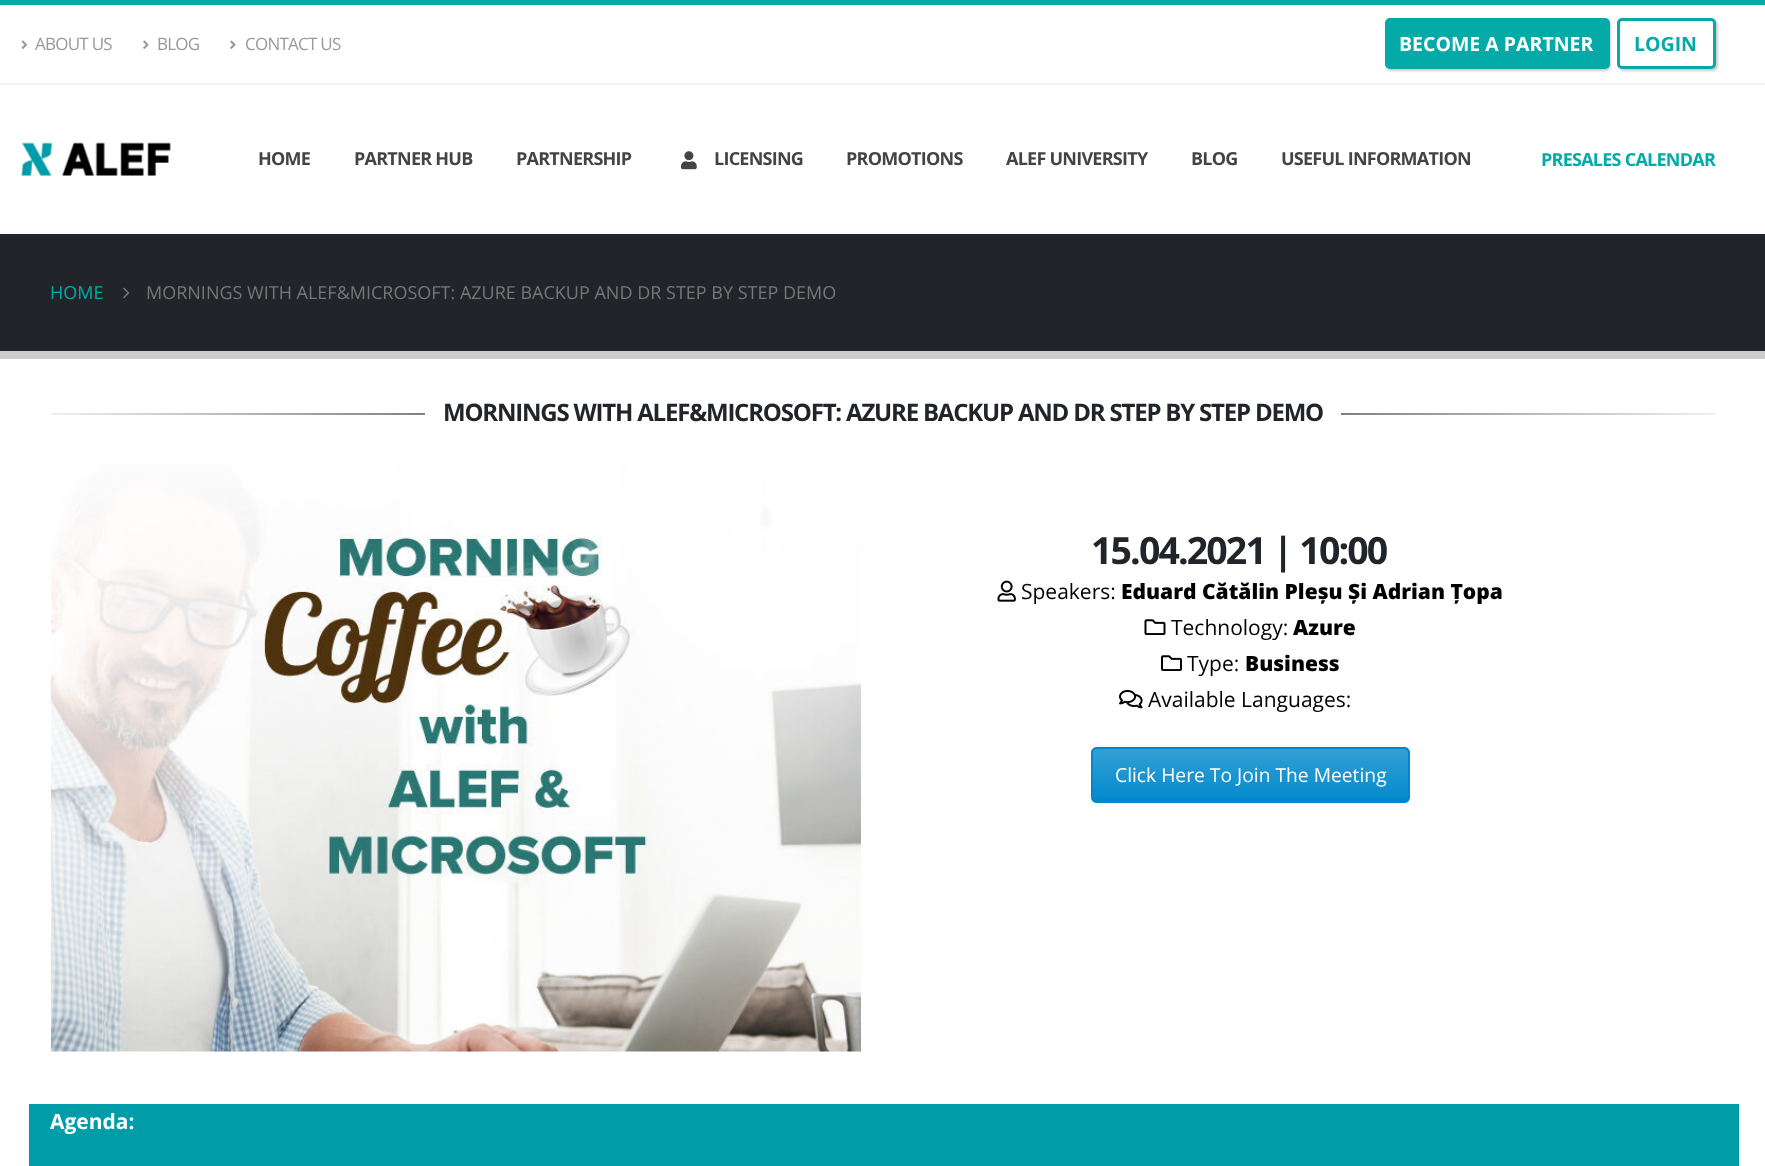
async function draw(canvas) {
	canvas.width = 1765;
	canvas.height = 1166;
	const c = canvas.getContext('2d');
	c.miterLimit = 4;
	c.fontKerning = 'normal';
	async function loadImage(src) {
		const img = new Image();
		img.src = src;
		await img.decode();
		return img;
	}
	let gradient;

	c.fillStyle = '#fff';
	c.fillRect(0, 0, 1765, 1166);
	c.fillStyle = '#04aaa7';
	c.fillRect(0, 0, 1765, 5);
	c.fillStyle = '#f4f4f4';
	c.fillRect(0, 83, 1765, 2);
	c.drawImage(await loadImage('img1.png'), 21, 40, 7, 9);
	c.letterSpacing = '-0.75px';
	c.font = '17px Open Sans';
	c.fillStyle = '#999';
	c.fillText('ABOUT US', 35, 50);
	c.drawImage(await loadImage('img2.png'), 143, 40, 6, 9);
	c.fillText('BLOG', 157, 50);
	c.drawImage(await loadImage('img2.png'), 230, 40, 6, 9);
	c.fillText('CONTACT US', 245, 50);
	c.fillStyle = '#00000033';
	c.filter = 'blur(1px)';
	c.beginPath();
	c.roundRect(1386, 20, 225, 51, 5);
	c.fill();
	c.filter = 'none';
	c.fillStyle = '#04aaa7';
	c.beginPath();
	c.roundRect(1385, 18, 225, 51, 5);
	c.fill();
	c.letterSpacing = '0px';
	c.font = 'bold 19.5px Open Sans';
	c.fillStyle = '#fff';
	c.fillText('BECOME A PARTNER', 1399, 51);
	c.fillStyle = '#00000033';
	c.filter = 'blur(1px)';
	c.beginPath();
	c.roundRect(1619, 20, 99, 51, 5);
	c.fill();
	c.filter = 'none';
	c.fillStyle = '#fff';
	c.beginPath();
	c.roundRect(1618.5, 19.5, 96, 48, 3.5);
	c.fill();
	c.strokeStyle = '#04aaa7';
	c.lineWidth = 3;
	c.stroke();
	c.fillStyle = '#04aaa7';
	c.fillText('LOGIN', 1634, 51);
	c.drawImage(await loadImage('img3.png'), 21, 142, 150, 34);
	c.letterSpacing = '-0.75px';
	c.font = 'bold 18px Open Sans';
	c.fillStyle = '#444';
	for (const [text, x, y] of [
		['HOME', 258, 165],
		['PARTNER HUB', 354, 165],
		['PARTNERSHIP', 516, 165],
	]) {
		c.fillText(text, x, y);
	}
	c.drawImage(await loadImage('img4.png'), 681, 151, 16, 19);
	for (const [text, x, y] of [
		['LICENSING', 714, 165],
		['PROMOTIONS', 846, 165],
		['ALEF UNIVERSITY', 1006, 165],
		['BLOG', 1191, 165],
		['USEFUL INFORMATION', 1281, 165],
	]) {
		c.fillText(text, x, y);
	}
	c.fillStyle = '#04aaa7';
	c.fillText('PRESALES CALENDAR', 1541, 166);
	c.fillStyle = '#212529';
	c.fillRect(0, 234, 1765, 117);
	c.fillStyle = '#ccc';
	c.fillRect(0, 351, 1765, 8);
	c.letterSpacing = '0px';
	c.font = '18px Open Sans';
	c.fillStyle = '#04aaa7';
	c.fillText('HOME', 50, 299);
	c.drawImage(await loadImage('img5.png'), 123, 287, 7, 12);
	c.fillStyle = '#777';
	c.fillText('MORNINGS WITH ALEF&MICROSOFT: AZURE BACKUP AND DR STEP BY STEP DEMO', 146, 299);
	gradient = c.createLinearGradient(51, 413, 425, 413);
	gradient.addColorStop(0, '#f0f0f0');
	gradient.addColorStop(1, '#808080');
	c.fillStyle = gradient;
	c.fillRect(51, 413, 374, 2);
	c.letterSpacing = '-1.2px';
	c.font = 'bold 24px Open Sans';
	c.fillStyle = '#212529';
	c.fillText('MORNINGS WITH ALEF&MICROSOFT: AZURE BACKUP AND DR STEP BY STEP DEMO', 443, 421);
	gradient = c.createLinearGradient(1341, 413, 1716, 413);
	gradient.addColorStop(0, '#808080');
	gradient.addColorStop(1, '#f0f0f0');
	c.fillStyle = gradient;
	c.fillRect(1341, 413, 375, 2);
	c.drawImage(await loadImage('img6.png'), 51, 464, 810, 588);
	c.letterSpacing = '-1.9px';
	c.font = 'bold 37.5px Open Sans';
	c.fillStyle = '#212529';
	c.fillText('15.04.2021 | 10:00', 1091, 564);
	c.drawImage(await loadImage('img7.png'), 997, 580, 19, 22);
	c.letterSpacing = '0px';
	c.font = '21px Open Sans';
	c.fillStyle = '#000';
	c.fillText('Speakers:', 1021, 599);
	c.font = '800 21px Open Sans';
	c.fillText('Eduard Cătălin Pleșu Și Adrian Țopa', 1121, 599);
	c.drawImage(await loadImage('img8.png'), 1144, 619, 22, 16);
	c.font = '21px Open Sans';
	c.fillText('Technology:', 1171, 635);
	c.font = '800 21px Open Sans';
	c.fillText('Azure', 1293, 635);
	c.drawImage(await loadImage('img9.png'), 1161, 655, 21, 16);
	c.font = '21px Open Sans';
	c.fillText('Type:', 1187, 671);
	c.font = '800 21px Open Sans';
	c.fillText('Business', 1245, 671);
	c.drawImage(await loadImage('img10.png'), 1119, 690, 24, 19);
	c.font = '21px Open Sans';
	c.fillText('Available Languages:', 1148, 707);
	c.fillStyle = '#08c';
	c.beginPath();
	c.roundRect(1091, 747, 319, 56, 6);
	c.fill();
	c.save();
	c.beginPath();
	c.roundRect(1091, 747, 319, 56, 6);
	c.clip();
	gradient = c.createLinearGradient(1250, 749, 1250, 801);
	gradient.addColorStop(0, '#ffffff33');
	gradient.addColorStop(1, '#ffffff03');
	c.fillStyle = gradient;
	c.fillRect(1091, 749, 319, 49);
	c.restore();
	c.beginPath();
	c.roundRect(1092, 748, 317, 54, 5);
	c.strokeStyle = '#08c';
	c.lineWidth = 2;
	c.stroke();
	c.font = '19.25px Open Sans';
	c.fillStyle = '#fff';
	c.fillText('Click Here To Join The Meeting', 1115, 782);
	c.fillStyle = '#009ca7';
	c.fillRect(29, 1104, 1710, 62);
	c.font = 'bold 21px Open Sans';
	c.fillStyle = '#fff';
	c.fillText('Agenda:', 50, 1129);
}

draw(document.querySelector('canvas'));
